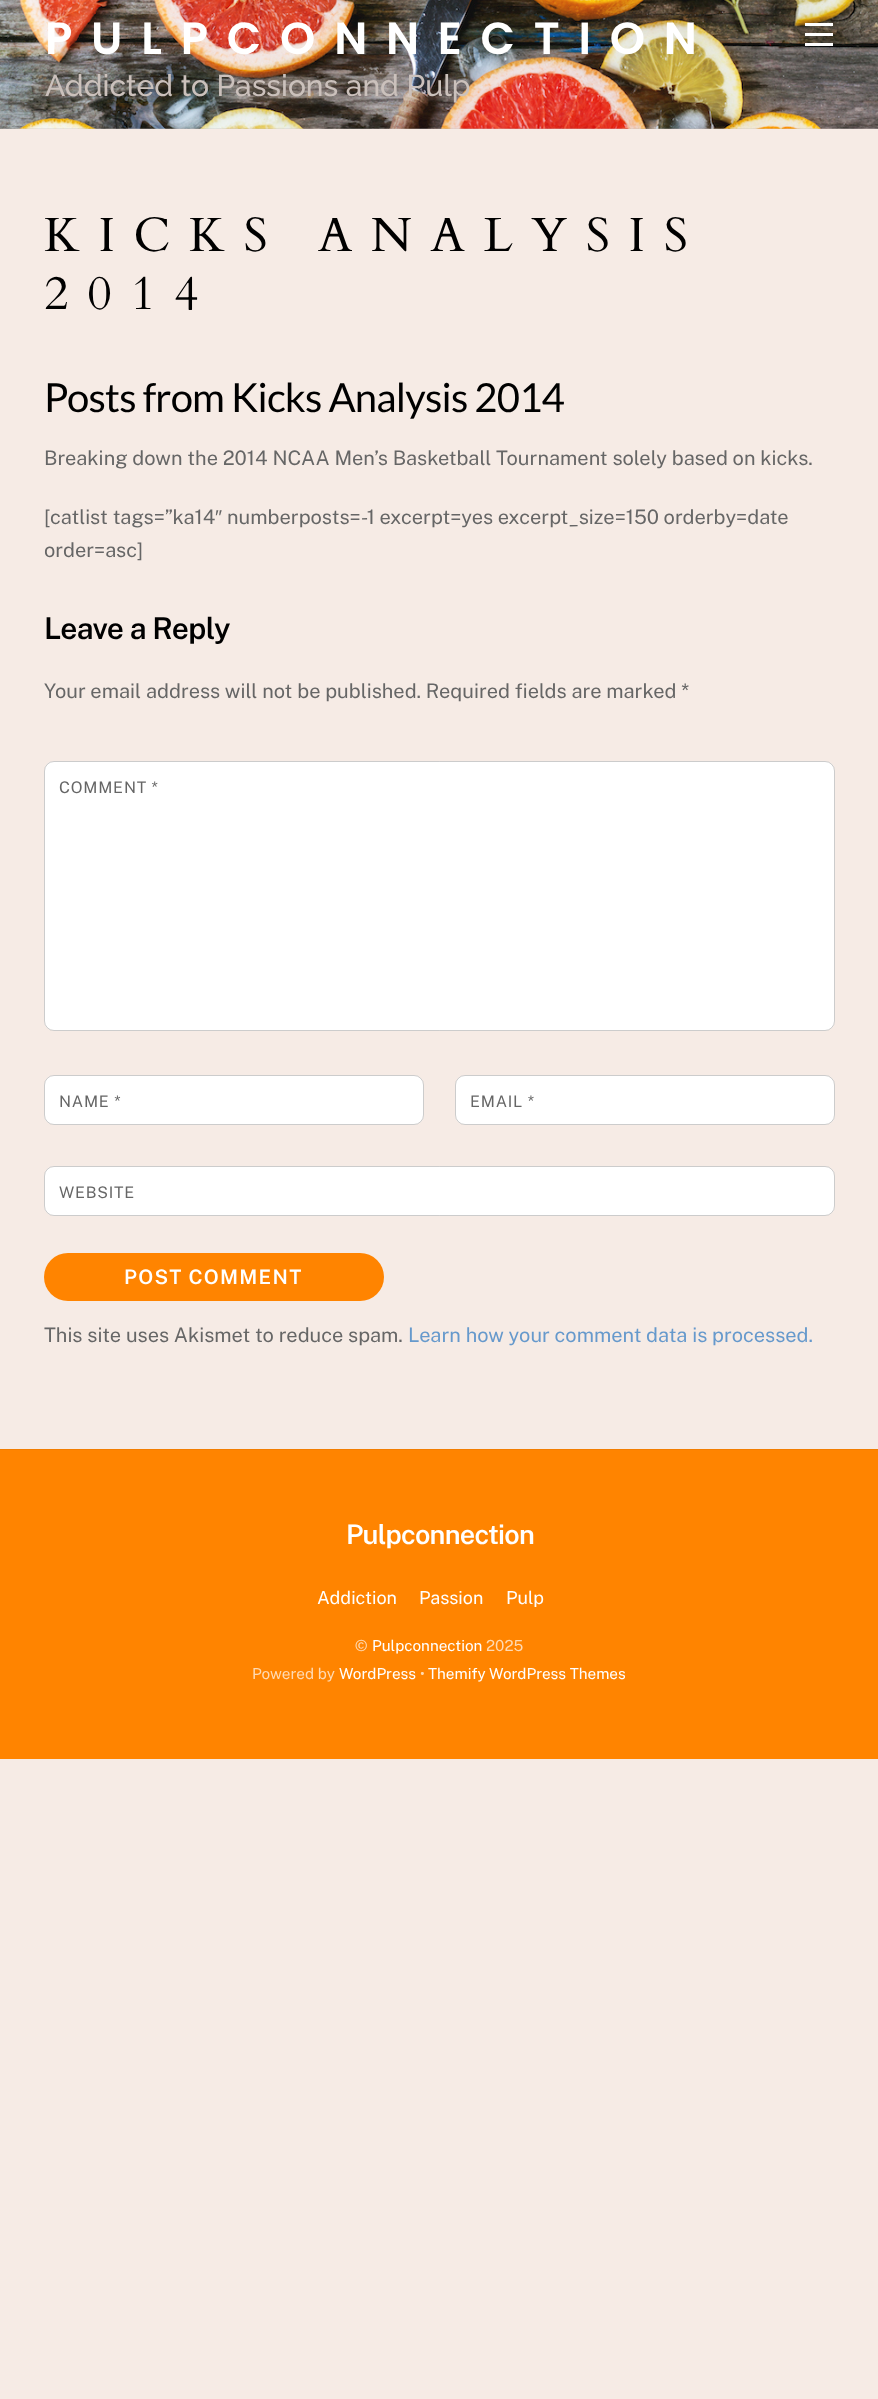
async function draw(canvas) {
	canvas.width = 878;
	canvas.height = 2399;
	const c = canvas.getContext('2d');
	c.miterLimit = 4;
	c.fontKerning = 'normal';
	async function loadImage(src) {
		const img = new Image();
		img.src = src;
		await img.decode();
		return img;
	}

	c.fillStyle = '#f6ebe5';
	c.fillRect(0, 0, 878, 2399);
	c.drawImage(await loadImage('img1.png'), 0, 0, 878, 129);
	c.fillStyle = '#0000000d';
	c.fillRect(0, 128, 878, 1);
	c.letterSpacing = '18.75px';
	c.font = '600 45px Poppins';
	c.fillStyle = '#fff';
	c.fillText('PULPCONNECTION', 45, 54);
	c.letterSpacing = '0px';
	c.font = '500 30px Raleway';
	c.fillStyle = '#cbc1bc';
	c.fillText('Addicted to Passions and Pulp', 45, 96);
	for (const [x, y, w, h, color] of [
		[805, 43, 28, 3, '#fff'],
		[805, 23, 28, 3, '#fff'],
		[805, 33, 28, 3, '#fff'],
	]) {
		c.fillStyle = color;
		c.fillRect(x, y, w, h);
	}
	c.letterSpacing = '18.75px';
	c.font = '48px Cardo';
	c.fillStyle = '#000';
	c.fillText('KICKS ANALYSIS', 44, 251);
	c.fillText('2014', 44, 309);
	c.letterSpacing = '-0.8px';
	c.font = '40px Lato';
	c.fillText('Posts from Kicks Analysis 2014', 44, 412);
	c.letterSpacing = '0px';
	c.font = '20px Public Sans';
	c.fillStyle = '#666';
	c.fillText('Breaking down the 2014 NCAA Men’s Basketball Tournament solely based on kicks.', 44, 465);
	c.fillText('[catlist tags=”ka14', 44, 524);
	c.font = '20px Liberation Sans';
	c.fillText('″', 215, 524);
	c.font = '20px Public Sans';
	c.fillText('numberposts=-1 excerpt=yes excerpt_size=150 orderby=date', 227, 524);
	c.fillText('order=asc]', 44, 557);
	c.letterSpacing = '-0.6px';
	c.font = '600 30px Public Sans';
	c.fillStyle = '#000';
	c.fillText('Leave a Reply', 44, 639);
	c.letterSpacing = '0px';
	c.font = '20px Public Sans';
	c.fillStyle = '#666';
	c.fillText('Your email address will not be published. Required fields are marked *', 44, 698);
	c.fillStyle = '#fff';
	c.beginPath();
	c.roundRect(44, 761, 791, 270, 10);
	c.fill();
	c.beginPath();
	c.roundRect(44.5, 761.5, 790, 269, 9.5);
	c.strokeStyle = '#00000033';
	c.stroke();
	c.letterSpacing = '0.75px';
	c.font = '16px Public Sans';
	c.fillStyle = '#666';
	c.fillText('COMMENT *', 59, 793);
	c.fillStyle = '#fff';
	c.beginPath();
	c.roundRect(44, 1075, 380, 50, 10);
	c.fill();
	c.beginPath();
	c.roundRect(44.5, 1075.5, 379, 49, 9.5);
	c.stroke();
	c.fillStyle = '#666';
	c.fillText('NAME *', 59, 1107);
	c.fillStyle = '#fff';
	c.beginPath();
	c.roundRect(455, 1075, 380, 50, 10);
	c.fill();
	c.beginPath();
	c.roundRect(455.5, 1075.5, 379, 49, 9.5);
	c.stroke();
	c.fillStyle = '#666';
	c.fillText('EMAIL *', 470, 1107);
	c.fillStyle = '#fff';
	c.beginPath();
	c.roundRect(44, 1166, 791, 50, 10);
	c.fill();
	c.beginPath();
	c.roundRect(44.5, 1166.5, 790, 49, 9.5);
	c.stroke();
	c.fillStyle = '#666';
	c.fillText('WEBSITE', 59, 1198);
	c.fillStyle = '#ff8400';
	c.beginPath();
	c.roundRect(44, 1253, 340, 48, 24);
	c.fill();
	c.letterSpacing = '1.25px';
	c.font = '600 20px Public Sans';
	c.fillStyle = '#fff';
	c.fillText('POST COMMENT', 124, 1284);
	c.letterSpacing = '0px';
	c.font = '20px Public Sans';
	c.fillStyle = '#666';
	c.fillText('This site uses Akismet to reduce spam.', 44, 1342);
	c.fillStyle = '#69c';
	c.fillText('Learn how your comment data is processed.', 408, 1342);
	c.fillStyle = '#ff8400';
	c.fillRect(0, 1450, 878, 309);
	c.fillStyle = '#f27d00';
	c.fillRect(0, 1449, 878, 1);
	c.letterSpacing = '-0.75px';
	c.font = '600 27px Public Sans';
	c.fillStyle = '#fff';
	c.fillText('Pulpconnection', 346, 1544);
	c.letterSpacing = '0px';
	c.font = '18px Public Sans';
	for (const [text, x, y] of [
		['Addiction', 317, 1604],
		['Passion', 419, 1604],
		['Pulp', 506, 1604],
	]) {
		c.fillText(text, x, y);
	}
	c.font = '15.25px Public Sans';
	c.fillStyle = '#ffdab3';
	c.fillText('©', 355, 1651);
	c.fillStyle = '#fff';
	c.fillText('Pulpconnection', 372, 1651);
	c.fillStyle = '#ffdab3';
	c.fillText('2025', 486, 1651);
	c.fillText('Powered by', 252, 1679);
	c.fillStyle = '#fff';
	c.fillText('WordPress', 339, 1679);
	c.fillStyle = '#ffdab3';
	c.fillText('•', 420, 1679);
	c.fillStyle = '#fff';
	c.fillText('Themify WordPress Themes', 428, 1679);
}

draw(document.querySelector('canvas'));
